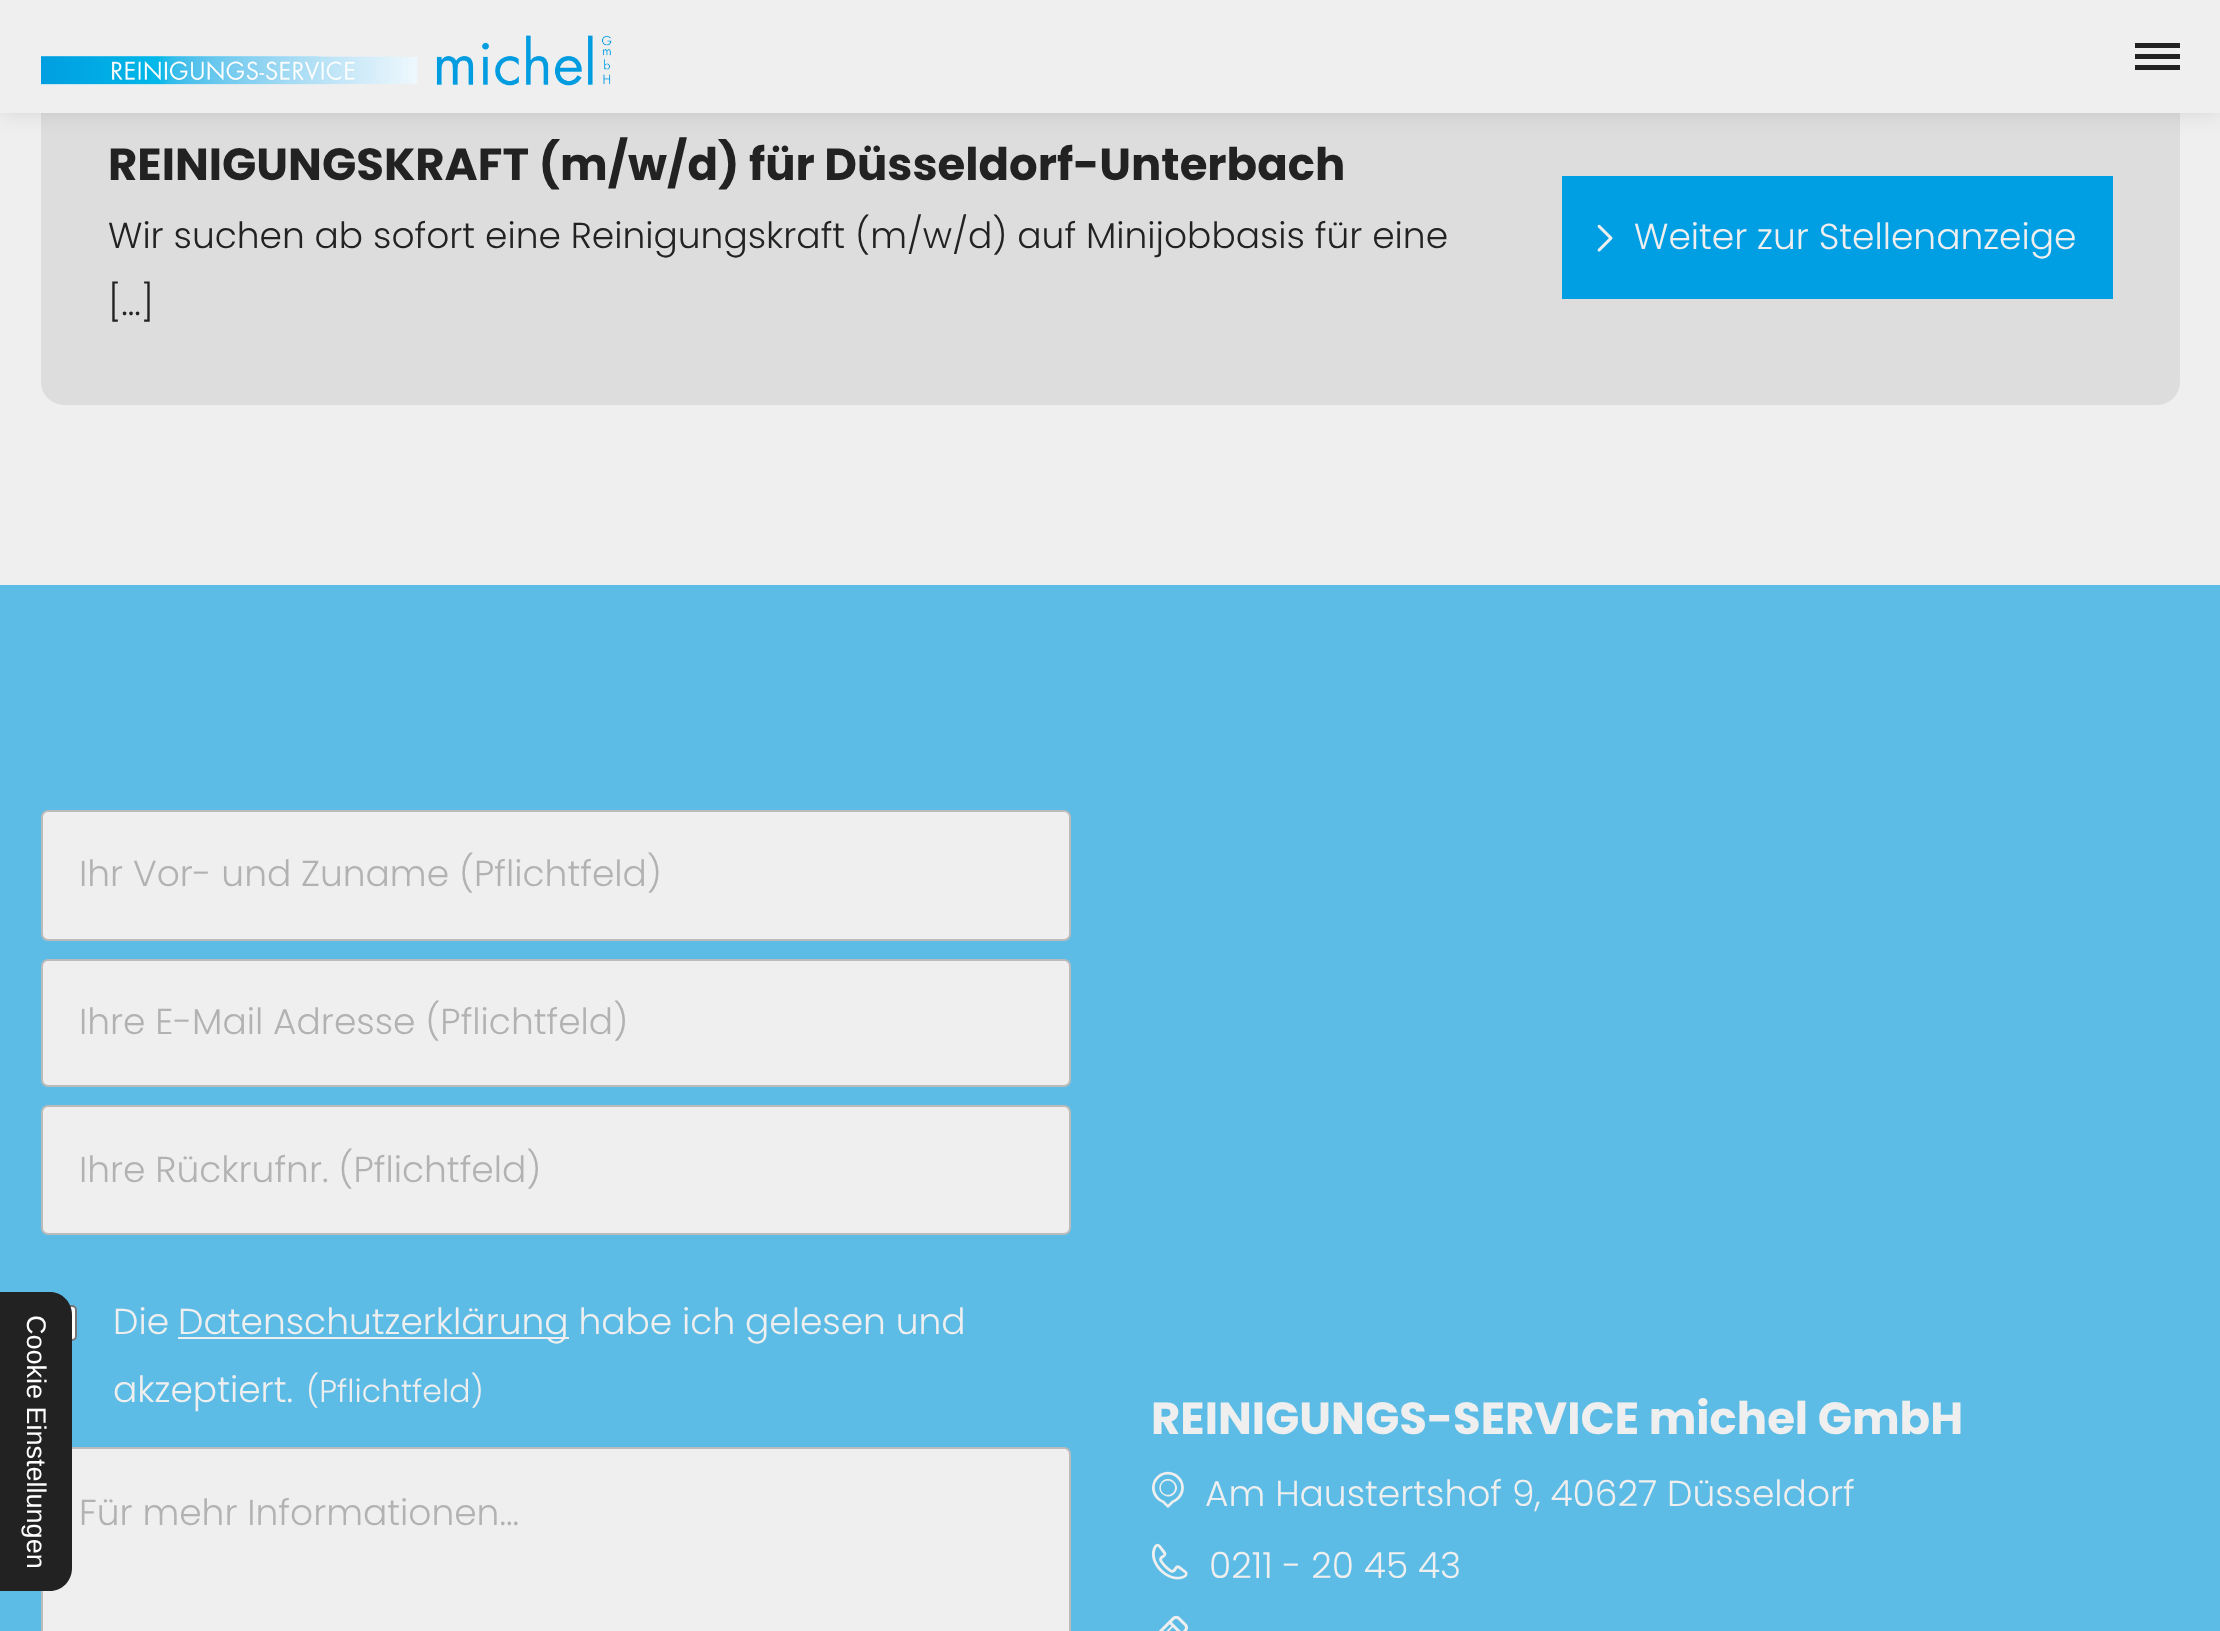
async function draw(canvas) {
	canvas.width = 2220;
	canvas.height = 1631;
	const c = canvas.getContext('2d');
	c.miterLimit = 4;
	c.fontKerning = 'normal';
	async function loadImage(src) {
		const img = new Image();
		img.src = src;
		await img.decode();
		return img;
	}

	c.fillStyle = '#efefef';
	c.fillRect(0, 0, 2220, 1631);
	c.fillStyle = '#ddd';
	c.beginPath();
	c.roundRect(41, 70, 2139, 335, 23);
	c.fill();
	c.fillStyle = '#0000001a';
	c.filter = 'blur(11px)';
	c.beginPath();
	c.rect(0, 0, 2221, 113);
	c.fill();
	c.filter = 'none';
	c.fillStyle = '#efefef';
	c.fillRect(0, 0, 2220, 113);
	c.drawImage(await loadImage('img1.png'), 41, 35, 571, 51);
	for (const [x, y, w, h, color] of [
		[2135, 54, 45, 5, '#222'],
		[2135, 43, 45, 5, '#222'],
		[2135, 65, 45, 5, '#222'],
		[0, 585, 2220, 1046, '#5dbce5'],
	]) {
		c.fillStyle = color;
		c.fillRect(x, y, w, h);
	}
	c.fillStyle = '#fff';
	c.beginPath();
	c.roundRect(42, 1306, 34, 34, 4);
	c.fill();
	c.strokeStyle = '#767676';
	c.lineWidth = 2;
	c.stroke();
	c.fillStyle = '#efefef';
	c.beginPath();
	c.roundRect(42, 1448, 1028, 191, 6);
	c.fill();
	c.strokeStyle = '#bbb';
	c.stroke();
	c.fillStyle = '#222';
	c.beginPath();
	c.moveTo(72, 1315);
	c.lineTo(72, 1568);
	c.bezierCurveTo(72, 1581, 62, 1591, 50, 1591);
	c.lineTo(0, 1591);
	c.lineTo(0, 1292);
	c.lineTo(50, 1292);
	c.bezierCurveTo(62, 1292, 72, 1302, 72, 1315);
	c.closePath();
	c.fill();
	c.font = '27px Liberation Sans';
	c.fillStyle = '#fff';
	c.save();
	c.translate(27, 1315);
	c.rotate(90 * Math.PI / 180);
	c.fillText('Cookie Einstellungen', 0, 0);
	c.restore();
	c.font = 'bold 45px Poppins';
	c.fillStyle = '#222';
	c.fillText('REINIGUNGSKRAFT (m/w/d) für Düsseldorf-Unterbach', 108, 180);
	c.font = '300 36px Poppins';
	c.fillText('Wir suchen ab sofort eine Reinigungskraft (m/w/d) auf Minijobbasis für eine', 108, 248);
	c.fillText('[...]', 108, 315);
	c.fillStyle = '#009fe3';
	c.fillRect(1562, 176, 551, 123);
	c.drawImage(await loadImage('img2.png'), 1597, 224, 16, 28);
	c.fillStyle = '#efefef';
	c.fillText('Weiter zur Stellenanzeige', 1634, 249);
	c.beginPath();
	c.roundRect(42, 811, 1028, 129, 6);
	c.fill();
	c.stroke();
	c.fillStyle = '#b2b2b2';
	c.fillText('Ihr Vor- und Zuname (Pflichtfeld)', 79, 886);
	c.fillStyle = '#efefef';
	c.beginPath();
	c.roundRect(42, 960, 1028, 126, 6);
	c.fill();
	c.stroke();
	c.fillStyle = '#b2b2b2';
	c.fillText('Ihre E-Mail Adresse (Pflichtfeld)', 79, 1034);
	c.fillStyle = '#efefef';
	c.beginPath();
	c.roundRect(42, 1106, 1028, 128, 6);
	c.fill();
	c.stroke();
	c.fillStyle = '#b2b2b2';
	c.fillText('Ihre Rückrufnr. (Pflichtfeld)', 79, 1182);
	c.fillStyle = '#efefef';
	c.fillText('Die', 113, 1334);
	c.fillRect(178, 1337, 391, 2);
	c.fillText('Datenschutzerklärung habe ich gelesen und', 178, 1334);
	c.fillText('akzeptiert.', 113, 1402);
	c.font = '300 31.5px Poppins';
	c.fillText('(Pflichtfeld)', 306, 1402);
	c.font = '300 36px Poppins';
	c.fillStyle = '#b2b2b2';
	c.fillText('Für mehr Informationen...', 79, 1525);
	c.font = 'bold 45px Poppins';
	c.fillStyle = '#efefef';
	c.fillText('REINIGUNGS-SERVICE michel GmbH', 1151, 1434);
	c.drawImage(await loadImage('img3.png'), 1152, 1471, 32, 37);
	c.font = '300 36px Poppins';
	c.fillText('Am Haustertshof 9, 40627 Düsseldorf', 1205, 1506);
	c.drawImage(await loadImage('img4.png'), 1151, 1543, 37, 37);
	c.fillText('0211 - 20 45 43', 1209, 1578);
	c.drawImage(await loadImage('img5.png'), 1158, 1615, 30, 16);
}

draw(document.querySelector('canvas'));
